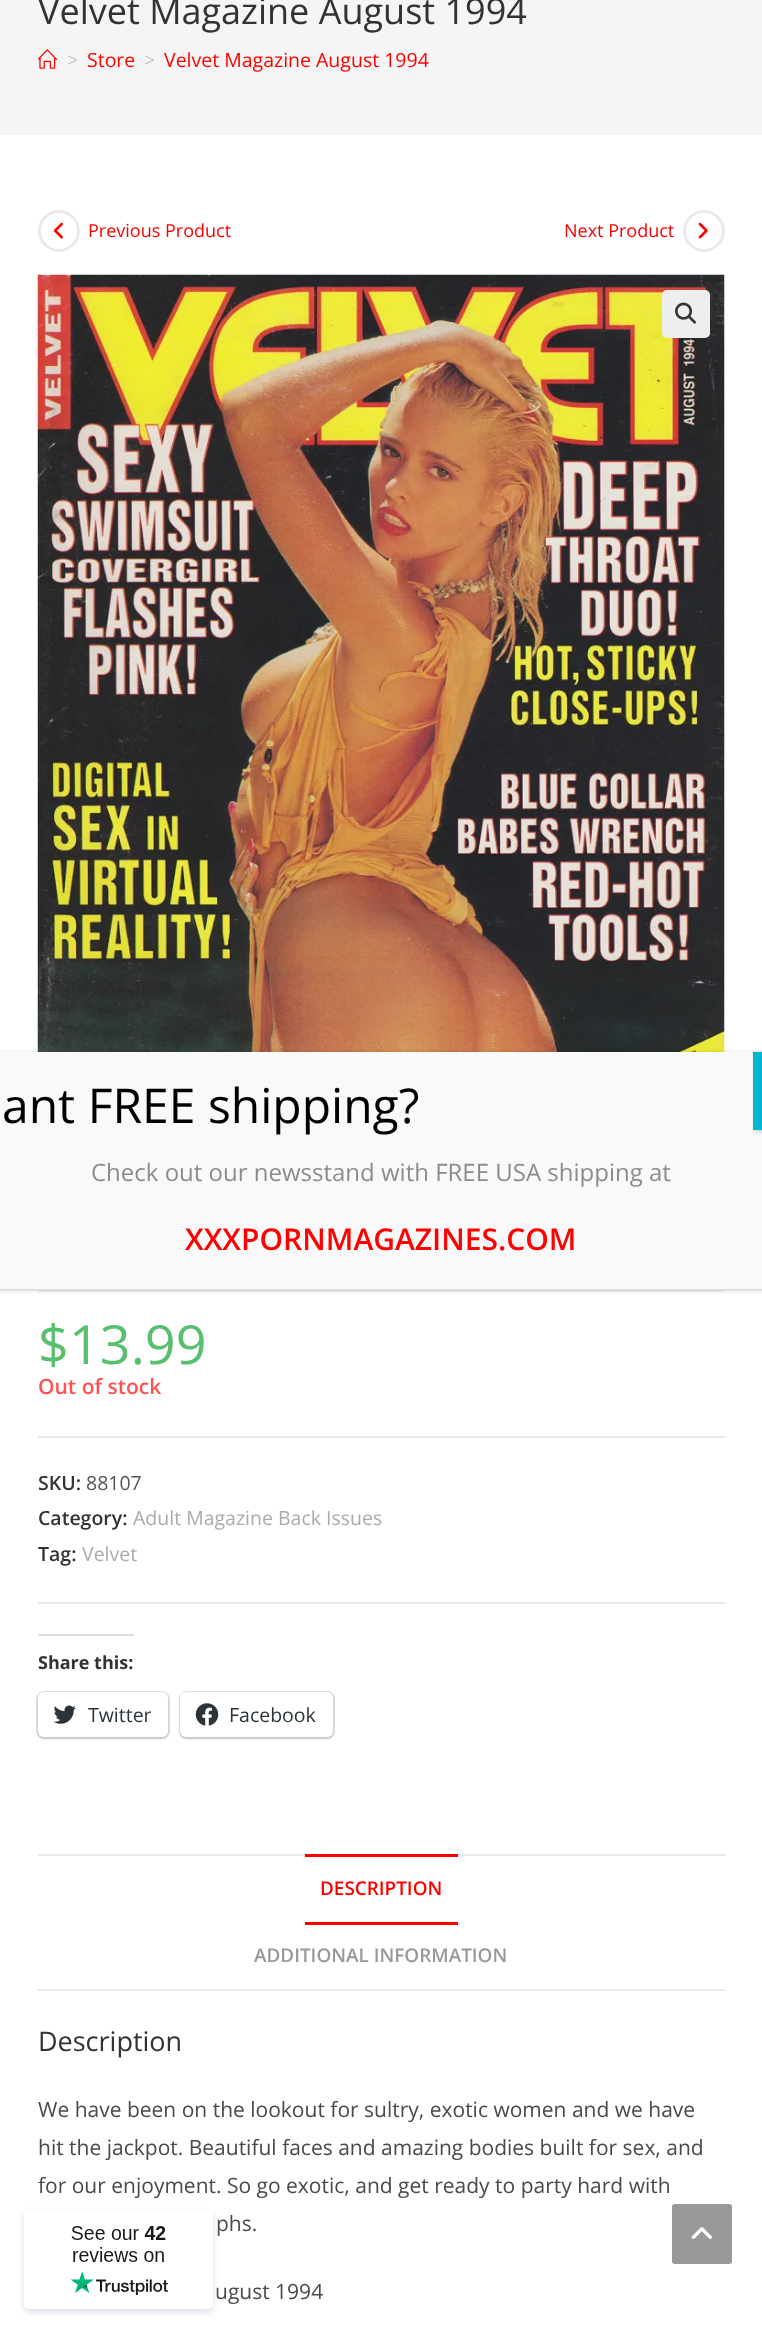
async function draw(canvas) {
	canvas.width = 762;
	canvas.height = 2338;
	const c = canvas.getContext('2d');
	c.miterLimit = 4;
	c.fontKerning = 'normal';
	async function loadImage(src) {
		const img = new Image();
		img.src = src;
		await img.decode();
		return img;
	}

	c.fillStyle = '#fff';
	c.fillRect(0, 0, 762, 2338);
	c.fillStyle = '#f5f5f5';
	c.fillRect(0, 0, 762, 135);
	c.font = '36px Open Sans';
	c.fillStyle = '#333';
	c.fillText('Velvet Magazine August 1994', 38, 24);
	c.drawImage(await loadImage('img1.png'), 38, 49, 19, 20);
	c.font = '19.5px Open Sans';
	c.fillStyle = '#c6c6c6';
	c.fillText('>', 67, 67);
	c.fillStyle = '#f00';
	c.fillText('Store', 87, 67);
	c.fillStyle = '#c6c6c6';
	c.fillText('>', 144, 67);
	c.fillStyle = '#f00';
	c.fillText('Velvet Magazine August 1994', 164, 67);
	c.beginPath();
	c.arc(59, 231, 19.5, 0, 2 * Math.PI);
	c.strokeStyle = '#e9e9e9';
	c.lineWidth = 3;
	c.stroke();
	c.drawImage(await loadImage('img2.png'), 53, 222, 10, 17);
	c.font = '18px Open Sans';
	c.fillText('Previous Product', 88, 237);
	c.fillText('Next Product', 564, 237);
	c.beginPath();
	c.arc(704, 231, 19.5, 0, 2 * Math.PI);
	c.stroke();
	c.drawImage(await loadImage('img3.png'), 698, 222, 10, 17);
	c.drawImage(await loadImage('img4.png'), 37, 274, 688, 778);
	c.fillStyle = '#eee';
	c.beginPath();
	c.roundRect(662, 290, 48, 48, 5);
	c.fill();
	c.drawImage(await loadImage('img5.png'), 675, 302, 21, 22);
	c.fillStyle = '#f1f1f1';
	c.fillRect(38, 1290, 687, 2);
	c.font = '54px Open Sans';
	c.fillStyle = '#57bf6d';
	c.fillText('$13.99', 38, 1364);
	c.font = '600 21px Open Sans';
	c.fillStyle = '#fe5252';
	c.fillText('Out of stock', 38, 1394);
	c.fillStyle = '#eaeaea';
	c.fillRect(38, 1436, 687, 2);
	c.fillRect(38, 1602, 687, 2);
	c.font = '600 19.5px Open Sans';
	c.fillStyle = '#333';
	c.fillText('SKU:', 38, 1490);
	c.font = '19.5px Open Sans';
	c.fillStyle = '#555';
	c.fillText('88107', 86, 1490);
	c.font = '600 19.5px Open Sans';
	c.fillStyle = '#333';
	c.fillText('Category:', 38, 1525);
	c.font = '19.5px Open Sans';
	c.fillStyle = '#ababab';
	c.fillText('Adult Magazine Back Issues', 133, 1525);
	c.font = '600 19.5px Open Sans';
	c.fillStyle = '#333';
	c.fillText('Tag:', 38, 1561);
	c.font = '19.5px Open Sans';
	c.fillStyle = '#ababab';
	c.fillText('Velvet', 82, 1561);
	c.fillStyle = '#dcdcde';
	c.fillRect(38, 1634, 96, 2);
	c.font = 'bold 18px Open Sans';
	c.fillStyle = '#333';
	c.fillText('Share this:', 38, 1669);
	c.beginPath();
	c.roundRect(37, 1692, 132, 46, 7);
	c.strokeStyle = '#e0e0e0';
	c.lineWidth = 2;
	c.stroke();
	c.fillStyle = '#0000001f';
	c.filter = 'blur(1.5px)';
	c.beginPath();
	c.roundRect(38, 1694, 130, 45, 6);
	c.fill();
	c.filter = 'none';
	c.fillStyle = '#fff';
	c.beginPath();
	c.roundRect(38, 1692, 130, 45, 6);
	c.fill();
	c.drawImage(await loadImage('img6.png'), 53, 1705, 23, 19);
	c.font = '19.5px Open Sans';
	c.fillStyle = '#2c3338';
	c.fillText('Twitter', 88, 1722);
	c.beginPath();
	c.roundRect(180, 1692, 154, 46, 7);
	c.stroke();
	c.fillStyle = '#0000001f';
	c.filter = 'blur(1.5px)';
	c.beginPath();
	c.roundRect(180, 1694, 153, 45, 6);
	c.fill();
	c.filter = 'none';
	c.fillStyle = '#fff';
	c.beginPath();
	c.roundRect(180, 1692, 153, 45, 6);
	c.fill();
	c.drawImage(await loadImage('img7.png'), 195, 1703, 24, 23);
	c.fillStyle = '#2c3338';
	c.fillText('Facebook', 229, 1722);
	for (const [x, y, w, h, color] of [
		[38, 1854, 687, 2, '#eaeaea'],
		[38, 1989, 687, 2, '#eaeaea'],
		[305, 1854, 153, 3, '#f00'],
		[305, 1922, 153, 3, '#f00'],
	]) {
		c.fillStyle = color;
		c.fillRect(x, y, w, h);
	}
	c.font = '600 18.9px Open Sans';
	c.fillText('DESCRIPTION', 320, 1895);
	c.fillStyle = '#999';
	c.fillText('ADDITIONAL INFORMATION', 254, 1962);
	c.font = '27px Open Sans';
	c.fillStyle = '#333';
	c.fillText('Description', 38, 2051);
	c.font = '21px Open Sans';
	c.fillStyle = '#4a4a4a';
	for (const [text, x, y] of [
		['We have been on the lookout for sultry, exotic women and we have', 38, 2117],
		['hit the jackpot. Beautiful faces and amazing bodies built for sex, and', 38, 2155],
		['for our enjoyment. So go exotic, and get ready to party hard with', 38, 2193],
		['phs.', 216, 2231],
		['ugust 1994', 215, 2299],
	]) {
		c.fillText(text, x, y);
	}
	c.fillStyle = '#0202023b';
	c.filter = 'blur(2px)';
	c.beginPath();
	c.rect(-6, 1053, 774, 237);
	c.fill();
	c.filter = 'none';
	c.fillStyle = '#f9f9f9';
	c.fillRect(0, 1052, 762, 237);
	c.font = '48px Open Sans';
	c.fillStyle = '#000';
	c.fillText('ant FREE shipping?', 2, 1123);
	c.fillStyle = '#0202023b';
	c.filter = 'blur(2px)';
	c.beginPath();
	c.rect(755, 1053, 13, 78);
	c.fill();
	c.filter = 'none';
	c.fillStyle = '#00b7cd';
	c.fillRect(753, 1052, 9, 78);
	c.font = '24px Open Sans';
	c.fillStyle = '#8c8c8c';
	c.fillText('Check out our newsstand with FREE USA shipping at', 91, 1181);
	c.font = '600 30px Open Sans';
	c.fillStyle = '#f00';
	c.fillText('XXXPORNMAGAZINES.COM', 185, 1250);
	c.fillStyle = '#dcdce6';
	c.filter = 'blur(3px)';
	c.beginPath();
	c.roundRect(24, 2213, 189, 99, 5);
	c.fill();
	c.filter = 'none';
	c.fillStyle = '#fff';
	c.beginPath();
	c.roundRect(24, 2210, 189, 99, 5);
	c.fill();
	c.drawImage(await loadImage('img8.png'), 70, 2226, 98, 69);
	c.fillStyle = '#999';
	c.beginPath();
	c.roundRect(672, 2204, 60, 60, 3);
	c.fill();
	c.drawImage(await loadImage('img9.png'), 691, 2227, 21, 12);
}

draw(document.querySelector('canvas'));
